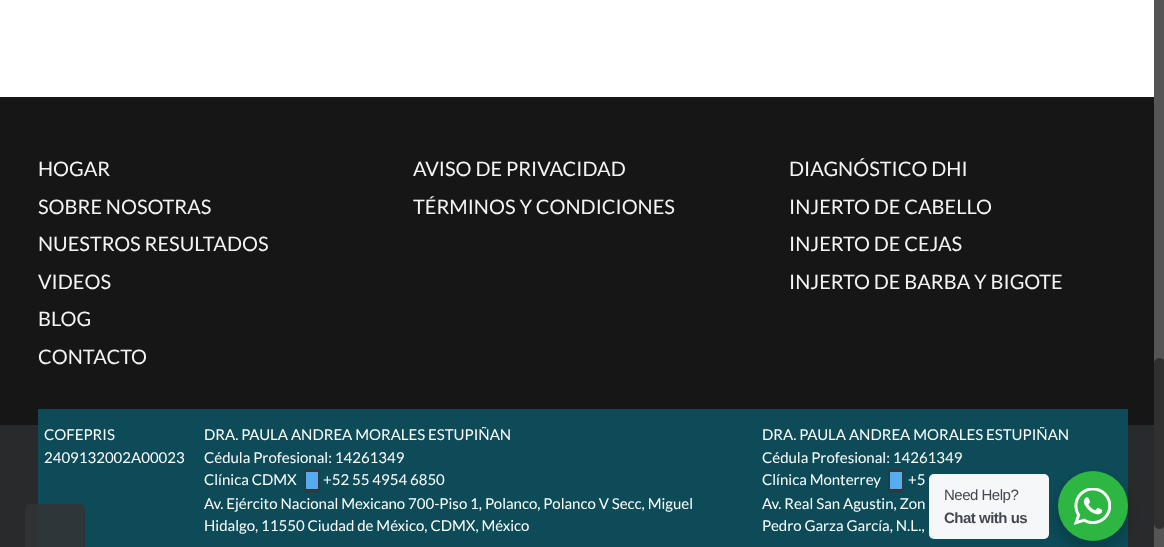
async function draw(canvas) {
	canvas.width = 1164;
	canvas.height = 547;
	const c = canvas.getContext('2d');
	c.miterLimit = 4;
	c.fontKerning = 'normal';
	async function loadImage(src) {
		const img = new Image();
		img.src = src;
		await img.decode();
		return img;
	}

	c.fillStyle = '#fff';
	c.fillRect(0, 0, 1164, 547);
	c.fillStyle = '#161616';
	c.fillRect(0, 97, 1154, 328);
	c.font = '20px Lato';
	c.fillStyle = '#f4f4f4';
	for (const [text, x, y] of [
		['HOGAR', 38, 176],
		['SOBRE NOSOTRAS', 38, 214],
		['NUESTROS RESULTADOS', 38, 251],
		['VIDEOS', 38, 289],
		['BLOG', 38, 326],
		['CONTACTO', 38, 364],
		['AVISO DE PRIVACIDAD', 413, 176],
		['TÉRMINOS Y CONDICIONES', 413, 214],
		['DIAGNÓSTICO DHI', 789, 176],
		['INJERTO DE CABELLO', 789, 214],
		['INJERTO DE CEJAS', 789, 251],
		['INJERTO DE BARBA Y BIGOTE', 789, 289],
	]) {
		c.fillText(text, x, y);
	}
	c.fillStyle = '#282a2b';
	c.fillRect(0, 425, 1154, 122);
	c.fillStyle = '#0c4b57';
	c.fillRect(38, 409, 1090, 138);
	c.font = '15px Lato';
	c.fillStyle = '#fff';
	for (const [text, x, y] of [
		['COFEPRIS', 44, 440],
		['2409132002A00023', 44, 463],
		['DRA. PAULA ANDREA MORALES ESTUPIÑAN', 204, 440],
		['Cédula Profesional: 14261349', 204, 463],
		['Clínica CDMX', 204, 485],
	]) {
		c.fillText(text, x, y);
	}
	c.drawImage(await loadImage('img1.png'), 304, 469, 16, 24);
	for (const [text, x, y] of [
		['+52 55 4954 6850', 323, 485],
		['Av. Ejército Nacional Mexicano 700-Piso 1, Polanco, Polanco V Secc, Miguel', 204, 509],
		['Hidalgo, 11550 Ciudad de México, CDMX, México', 204, 531],
		['DRA. PAULA ANDREA MORALES ESTUPIÑAN', 762, 440],
		['Cédula Profesional: 14261349', 762, 463],
		['Clínica Monterrey', 762, 485],
	]) {
		c.fillText(text, x, y);
	}
	c.drawImage(await loadImage('img2.png'), 888, 469, 15, 24);
	for (const [text, x, y] of [
		['+5', 908, 485],
		['Av. Real San Agustin, Zon', 762, 509],
		['Pedro Garza García, N.L.,', 762, 531],
	]) {
		c.fillText(text, x, y);
	}
	c.fillStyle = '#555';
	c.fillRect(1154, 0, 10, 547);
	c.fillStyle = '#303030';
	c.beginPath();
	c.roundRect(1154, 358, 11, 171, 5.5);
	c.fill();
	c.fillStyle = '#333333db';
	c.beginPath();
	c.moveTo(30, 504);
	c.lineTo(80, 504);
	c.bezierCurveTo(83, 504, 85, 506, 85, 509);
	c.lineTo(85, 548);
	c.lineTo(25, 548);
	c.lineTo(25, 509);
	c.bezierCurveTo(25, 506, 27, 504, 30, 504);
	c.closePath();
	c.fill();
	c.fillStyle = '#00000024';
	c.filter = 'blur(5px)';
	c.beginPath();
	c.roundRect(1055, 476, 75, 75, 37.5);
	c.fill();
	c.filter = 'none';
	c.fillStyle = '#f5f7f9';
	c.beginPath();
	c.roundRect(929, 474, 120, 65, 5);
	c.fill();
	c.letterSpacing = '-0.5px';
	c.font = '15px Liberation Sans';
	c.fillStyle = '#43474e';
	c.fillText('Need Help?', 944, 500);
	c.font = 'bold 15px Liberation Sans';
	c.fillText('Chat with us', 944, 523);
	c.fillStyle = '#2db742';
	c.beginPath();
	c.arc(1093, 506, 35, 0, 2 * Math.PI);
	c.fill();
	c.drawImage(await loadImage('img3.png'), 1074, 488, 37, 37);
}

draw(document.querySelector('canvas'));
